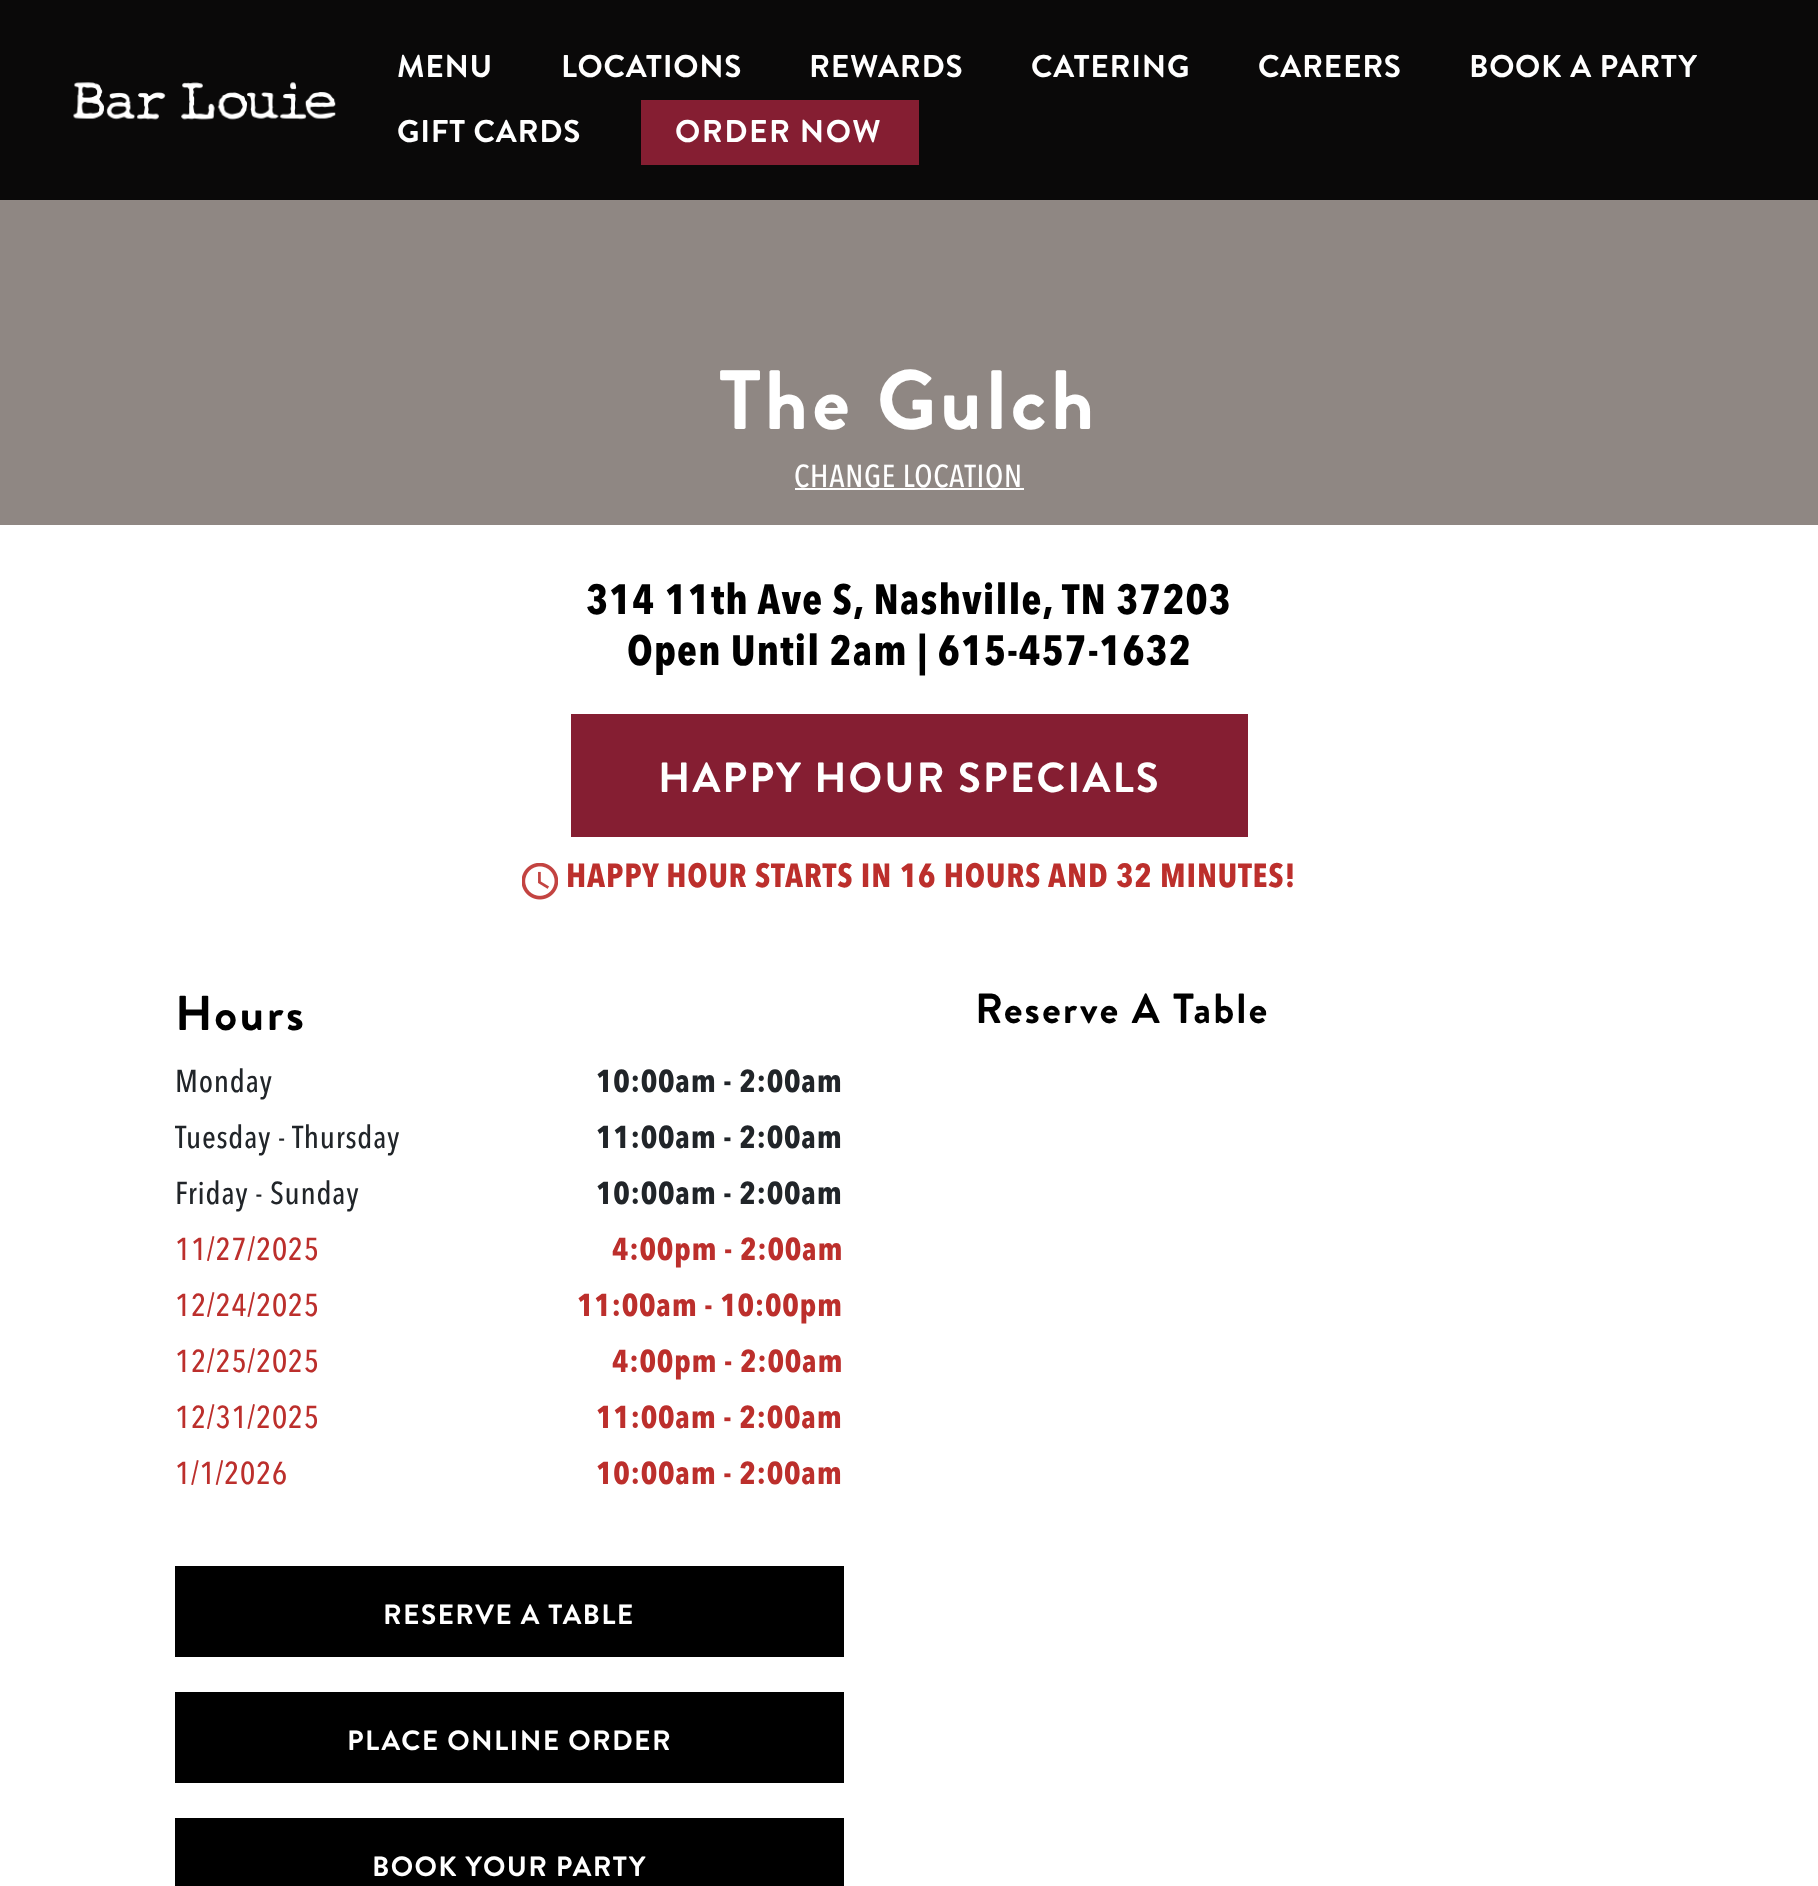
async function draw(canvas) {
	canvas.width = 1818;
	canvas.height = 1886;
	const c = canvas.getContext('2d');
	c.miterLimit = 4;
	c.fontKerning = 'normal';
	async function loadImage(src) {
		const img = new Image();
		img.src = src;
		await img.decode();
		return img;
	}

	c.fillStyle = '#fff';
	c.fillRect(0, 0, 1818, 1886);
	c.fillStyle = '#0a0909';
	c.fillRect(0, 0, 1818, 200);
	c.drawImage(await loadImage('img1.png'), 73, 82, 263, 38);
	c.letterSpacing = '0.75px';
	c.font = 'bold 31.5px Brandon Grotesque';
	c.fillStyle = '#fff';
	for (const [text, x, y] of [
		['MENU', 397, 77],
		['LOCATIONS', 561, 77],
		['REWARDS', 809, 77],
		['CATERING', 1031, 77],
		['CAREERS', 1258, 77],
		['BOOK A PARTY', 1469, 77],
		['GIFT CARDS', 397, 142],
	]) {
		c.fillText(text, x, y);
	}
	c.fillStyle = '#851e32';
	c.fillRect(641, 100, 278, 65);
	c.letterSpacing = '1.5px';
	c.fillStyle = '#fff';
	c.fillText('ORDER NOW', 675, 142);
	c.fillStyle = '#8f8783';
	c.fillRect(0, 200, 1818, 325);
	c.letterSpacing = '4.25px';
	c.font = 'bold 84px Brandon Grotesque';
	c.fillStyle = '#fff';
	c.fillText('The Gulch', 719, 429);
	c.letterSpacing = '0.75px';
	c.font = '500 31.5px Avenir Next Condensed';
	c.fillText('CHANGE LOCATION', 794, 487);
	c.fillRect(795, 488, 229, 2);
	c.letterSpacing = '1.05px';
	c.font = 'bold 42px Avenir Next Condensed';
	c.fillStyle = '#000';
	c.fillText('314 11th Ave S, Nashville, TN 37203', 586, 614);
	c.fillText('Open Until 2am | 615-457-1632', 627, 665);
	c.fillStyle = '#851e32';
	c.fillRect(571, 714, 677, 123);
	c.letterSpacing = '2.1px';
	c.font = 'bold 42px Brandon Grotesque';
	c.fillStyle = '#fff';
	c.fillText('HAPPY HOUR SPECIALS', 658, 792);
	c.drawImage(await loadImage('img2.png'), 522, 863, 36, 37);
	c.letterSpacing = '0.85px';
	c.font = 'bold 33.25px Avenir Next Condensed';
	c.fillStyle = '#bc2f2c';
	c.fillText('HAPPY HOUR STARTS IN 16 HOURS AND 32 MINUTES!', 566, 887);
	c.letterSpacing = '2.5px';
	c.font = 'bold 49px Brandon Grotesque';
	c.fillStyle = '#000';
	c.fillText('Hours', 175, 1030);
	c.letterSpacing = '0.75px';
	c.font = '500 31.5px Avenir Next Condensed';
	c.fillStyle = '#212529';
	c.fillText('Monday', 175, 1092);
	c.font = 'bold 31.5px Avenir Next Condensed';
	c.fillText('10:00am - 2:00am', 596, 1092);
	c.font = '500 31.5px Avenir Next Condensed';
	c.fillText('Tuesday - Thursday', 175, 1148);
	c.font = 'bold 31.5px Avenir Next Condensed';
	c.fillText('11:00am - 2:00am', 596, 1148);
	c.font = '500 31.5px Avenir Next Condensed';
	c.fillText('Friday - Sunday', 175, 1204);
	c.font = 'bold 31.5px Avenir Next Condensed';
	c.fillText('10:00am - 2:00am', 596, 1204);
	c.font = '500 31.5px Avenir Next Condensed';
	c.fillStyle = '#bc2f2c';
	c.fillText('11/27/2025', 175, 1260);
	c.font = 'bold 31.5px Avenir Next Condensed';
	c.fillText('4:00pm - 2:00am', 612, 1260);
	c.font = '500 31.5px Avenir Next Condensed';
	c.fillText('12/24/2025', 175, 1316);
	c.font = 'bold 31.5px Avenir Next Condensed';
	c.fillText('11:00am - 10:00pm', 577, 1316);
	c.font = '500 31.5px Avenir Next Condensed';
	c.fillText('12/25/2025', 175, 1372);
	c.font = 'bold 31.5px Avenir Next Condensed';
	c.fillText('4:00pm - 2:00am', 612, 1372);
	c.font = '500 31.5px Avenir Next Condensed';
	c.fillText('12/31/2025', 175, 1428);
	c.font = 'bold 31.5px Avenir Next Condensed';
	c.fillText('11:00am - 2:00am', 596, 1428);
	c.font = '500 31.5px Avenir Next Condensed';
	c.fillText('1/1/2026', 175, 1484);
	c.font = 'bold 31.5px Avenir Next Condensed';
	c.fillText('10:00am - 2:00am', 596, 1484);
	c.fillStyle = '#000';
	c.fillRect(175, 1566, 669, 91);
	c.letterSpacing = '1.4px';
	c.font = 'bold 28px Brandon Grotesque';
	c.fillStyle = '#fff';
	c.fillText('RESERVE A TABLE', 383, 1624);
	c.fillStyle = '#000';
	c.fillRect(175, 1692, 669, 91);
	c.fillStyle = '#fff';
	c.fillText('PLACE ONLINE ORDER', 347, 1750);
	c.fillStyle = '#000';
	c.fillRect(175, 1818, 669, 68);
	c.fillStyle = '#fff';
	c.fillText('BOOK YOUR PARTY', 372, 1876);
	c.letterSpacing = '2.1px';
	c.font = 'bold 42px Brandon Grotesque';
	c.fillStyle = '#000';
	c.fillText('Reserve A Table', 975, 1023);
}

draw(document.querySelector('canvas'));
